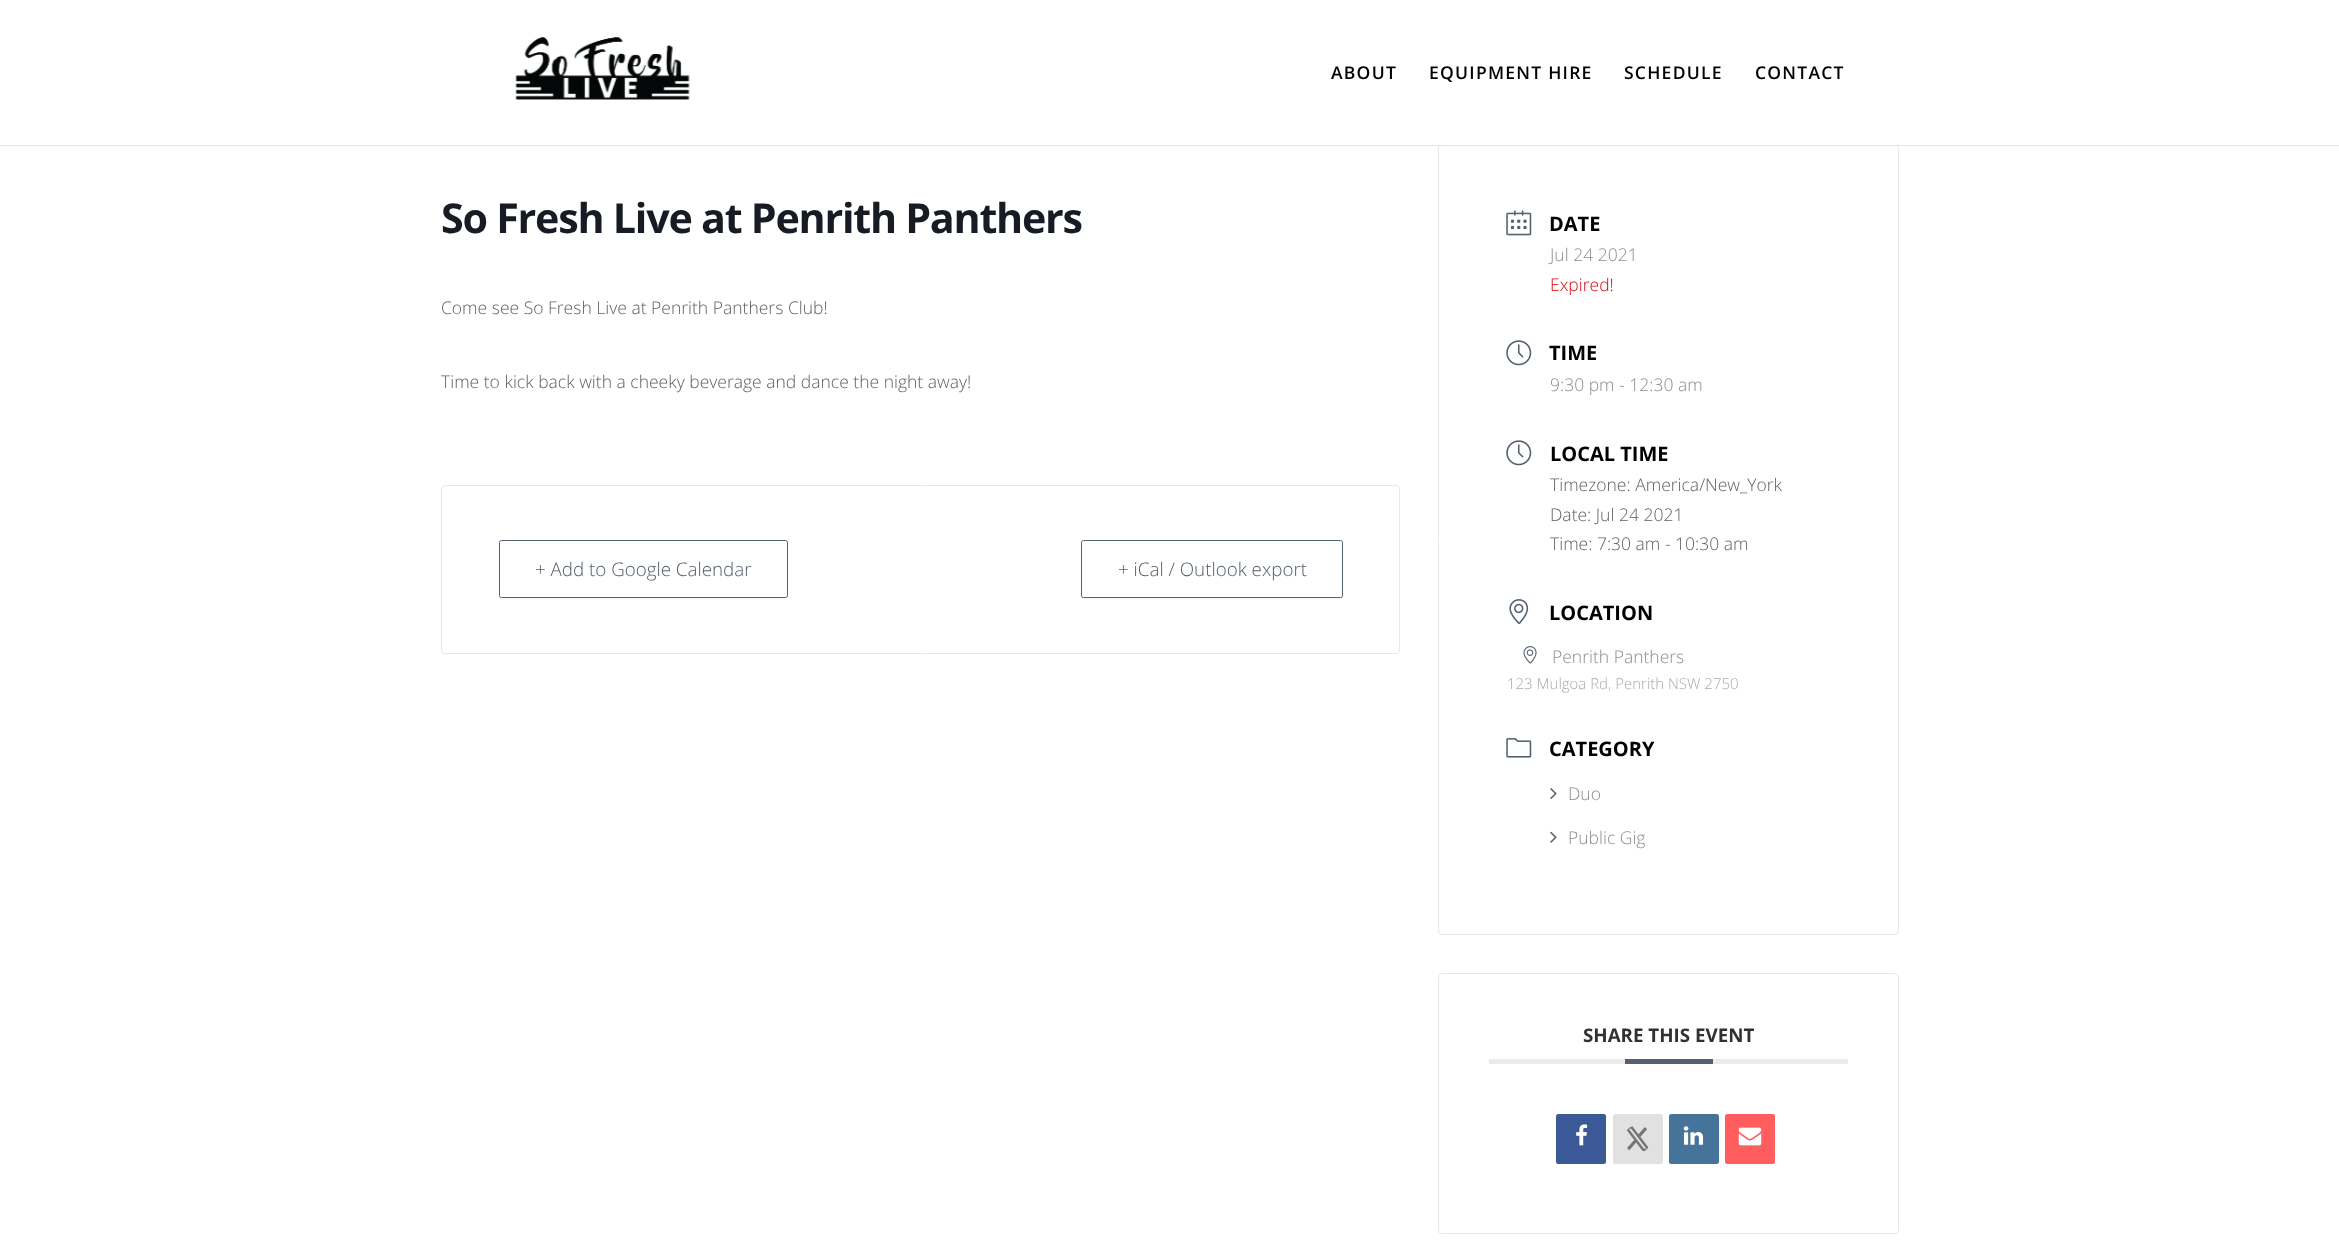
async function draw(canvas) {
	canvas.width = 2339;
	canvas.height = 1258;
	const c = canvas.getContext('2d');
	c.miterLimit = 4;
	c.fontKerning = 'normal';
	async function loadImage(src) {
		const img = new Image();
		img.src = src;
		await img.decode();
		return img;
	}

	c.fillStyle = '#fff';
	c.fillRect(0, 0, 2339, 1258);
	c.beginPath();
	c.roundRect(1438.5, 144.5, 460, 790, 3.5);
	c.strokeStyle = '#e6e7e8';
	c.stroke();
	c.fillStyle = '#0000001a';
	c.fillRect(0, 145, 2339, 1);
	c.fillStyle = '#fff';
	c.fillRect(1439, 144, 459, 1);
	c.drawImage(await loadImage('img1.png'), 515, 37, 175, 63);
	c.letterSpacing = '1.25px';
	c.font = '600 17.5px Open Sans';
	c.fillStyle = '#000';
	for (const [text, x, y] of [
		['ABOUT', 1331, 79],
		['EQUIPMENT HIRE', 1429, 79],
		['SCHEDULE', 1624, 79],
		['CONTACT', 1755, 79],
	]) {
		c.fillText(text, x, y);
	}
	c.letterSpacing = '-1.25px';
	c.font = 'bold 41.25px Open Sans';
	c.fillStyle = '#171c24';
	c.fillText('So Fresh Live at Penrith Panthers', 441, 233);
	c.letterSpacing = '0px';
	c.font = '300 17.5px Open Sans';
	c.fillStyle = '#616161';
	c.fillText('Come see So Fresh Live at Penrith Panthers Club!', 441, 314);
	c.fillText('Time to kick back with a cheeky beverage and dance the night away!', 441, 388);
	c.beginPath();
	c.roundRect(441.5, 485.5, 958, 168, 3.5);
	c.stroke();
	c.fillStyle = '#f7f7f7';
	c.beginPath();
	c.moveTo(499, 596);
	c.lineTo(499, 598);
	c.bezierCurveTo(499, 599, 500, 600, 502, 600);
	c.lineTo(786, 600);
	c.bezierCurveTo(787, 600, 788, 599, 788, 598);
	c.lineTo(788, 546);
	c.lineTo(788, 544);
	c.lineTo(788, 595);
	c.bezierCurveTo(788, 596, 786, 598, 785, 598);
	c.lineTo(501, 598);
	c.bezierCurveTo(500, 598, 499, 597, 499, 596);
	c.closePath();
	c.fill();
	c.fillStyle = '#fff';
	c.beginPath();
	c.roundRect(499.5, 540.5, 288, 57, 2);
	c.fill();
	c.strokeStyle = '#55606e';
	c.stroke();
	c.font = '300 18.75px Open Sans';
	c.fillStyle = '#55606e';
	c.fillText('+ Add to Google Calendar', 535, 576);
	c.fillStyle = '#f7f7f7';
	c.beginPath();
	c.moveTo(1081, 544);
	c.lineTo(1081, 598);
	c.bezierCurveTo(1081, 599, 1082, 600, 1084, 600);
	c.lineTo(1340, 600);
	c.bezierCurveTo(1342, 600, 1343, 599, 1343, 598);
	c.lineTo(1343, 546);
	c.lineTo(1342, 544);
	c.lineTo(1342, 595);
	c.bezierCurveTo(1342, 596, 1341, 598, 1340, 598);
	c.lineTo(1084, 598);
	c.bezierCurveTo(1082, 598, 1081, 596, 1081, 595);
	c.closePath();
	c.fill();
	c.fillStyle = '#fff';
	c.beginPath();
	c.roundRect(1081.5, 540.5, 261, 57, 2);
	c.fill();
	c.stroke();
	c.fillStyle = '#55606e';
	c.fillText('+ iCal / Outlook export', 1118, 576);
	c.drawImage(await loadImage('img2.png'), 1506, 210, 26, 26);
	c.font = 'bold 20px Open Sans';
	c.fillStyle = '#000';
	c.fillText('DATE', 1549, 231);
	c.font = '300 17.5px Open Sans';
	c.fillStyle = '#8d8d8d';
	c.fillText('Jul 24 2021', 1550, 261);
	c.fillStyle = '#d8000c';
	c.fillText('Expired!', 1550, 291);
	c.drawImage(await loadImage('img3.png'), 1506, 340, 26, 26);
	c.font = 'bold 20px Open Sans';
	c.fillStyle = '#000';
	c.fillText('TIME', 1549, 360);
	c.font = '300 17.5px Open Sans';
	c.fillStyle = '#8d8d8d';
	c.fillText('9:30 pm - 12:30 am', 1550, 391);
	c.drawImage(await loadImage('img3.png'), 1506, 440, 26, 26);
	c.font = 'bold 20px Open Sans';
	c.fillStyle = '#000';
	c.fillText('LOCAL TIME', 1550, 461);
	c.font = '300 17.5px Open Sans';
	c.fillStyle = '#616161';
	for (const [text, x, y] of [
		['Timezone: America/New_York', 1550, 491],
		['Date: Jul 24 2021', 1550, 521],
		['Time: 7:30 am - 10:30 am', 1550, 550],
	]) {
		c.fillText(text, x, y);
	}
	c.drawImage(await loadImage('img4.png'), 1509, 599, 20, 25);
	c.font = 'bold 20px Open Sans';
	c.fillStyle = '#000';
	c.fillText('LOCATION', 1549, 620);
	c.drawImage(await loadImage('img5.png'), 1523, 646, 14, 18);
	c.font = '300 17.5px Open Sans';
	c.fillStyle = '#8d8d8d';
	c.fillText('Penrith Panthers', 1552, 663);
	c.font = '300 15px Open Sans';
	c.fillStyle = '#a9a9a9';
	c.fillText('123 Mulgoa Rd, Penrith NSW 2750', 1507, 689);
	c.drawImage(await loadImage('img6.png'), 1506, 738, 26, 20);
	c.font = 'bold 20px Open Sans';
	c.fillStyle = '#000';
	c.fillText('CATEGORY', 1549, 756);
	c.drawImage(await loadImage('img7.png'), 1550, 788, 7, 12);
	c.font = '300 17.5px Open Sans';
	c.fillStyle = '#8d8d8d';
	c.fillText('Duo', 1568, 800);
	c.drawImage(await loadImage('img8.png'), 1550, 831, 7, 12);
	c.fillText('Public Gig', 1568, 844);
	c.beginPath();
	c.roundRect(1438.5, 973.5, 460, 260, 3.5);
	c.strokeStyle = '#e6e7e8';
	c.stroke();
	c.fillStyle = '#ebebeb';
	c.fillRect(1489, 1059, 359, 5);
	c.font = 'bold 18.75px Open Sans';
	c.fillStyle = '#313131';
	c.fillText('SHARE THIS EVENT', 1583, 1042);
	c.fillStyle = '#55606e';
	c.fillRect(1625, 1059, 88, 5);
	c.fillStyle = '#3b5996';
	c.beginPath();
	c.roundRect(1556, 1114, 50, 50, 2.5);
	c.fill();
	c.drawImage(await loadImage('img9.png'), 1576, 1124, 12, 22);
	c.fillStyle = '#e1e1e1';
	c.beginPath();
	c.roundRect(1613, 1114, 50, 50, 2.5);
	c.fill();
	c.drawImage(await loadImage('img10.png'), 1626, 1126, 23, 26);
	c.fillStyle = '#457399';
	c.beginPath();
	c.roundRect(1669, 1114, 50, 50, 2.5);
	c.fill();
	c.drawImage(await loadImage('img11.png'), 1683, 1126, 21, 19);
	c.fillStyle = '#ff5d5e';
	c.beginPath();
	c.roundRect(1725, 1114, 50, 50, 2.5);
	c.fill();
	c.drawImage(await loadImage('img12.png'), 1738, 1127, 24, 19);
}

draw(document.querySelector('canvas'));
